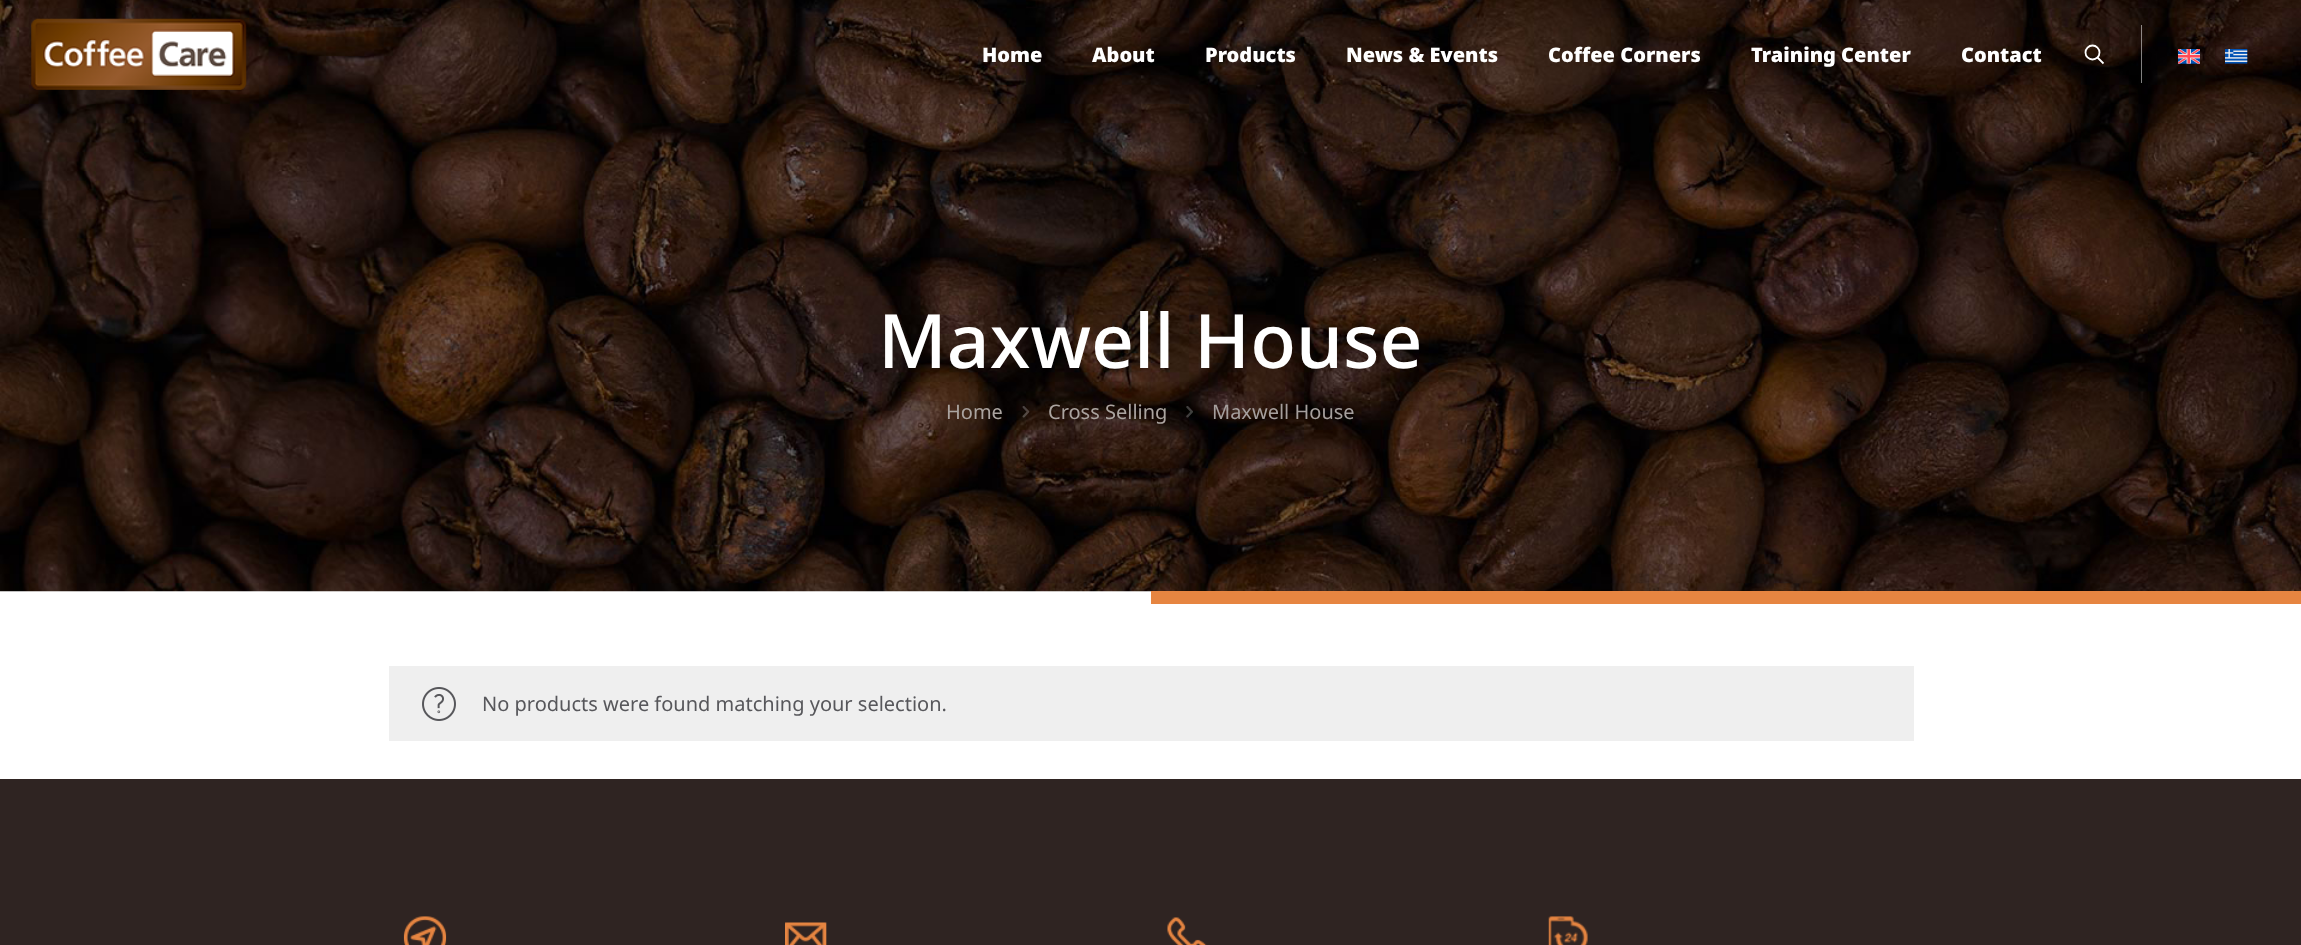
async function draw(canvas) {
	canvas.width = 2301;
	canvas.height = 945;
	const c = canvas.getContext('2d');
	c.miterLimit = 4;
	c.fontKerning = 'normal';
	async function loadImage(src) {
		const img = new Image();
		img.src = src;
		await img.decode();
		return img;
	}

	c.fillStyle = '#fff';
	c.fillRect(0, 0, 2301, 945);
	c.drawImage(await loadImage('img4.png'), 0, 0, 2301, 592);
	c.drawImage(await loadImage('img1.png'), 31, 18, 216, 72);
	c.font = '900 20px Noto Sans';
	for (const [text, x, y] of [
		['Home', 982, 62],
		['About', 1092, 62],
		['Products', 1205, 62],
		['News & Events', 1346, 62],
		['Coffee Corners', 1548, 62],
		['Training Center', 1751, 62],
		['Contact', 1961, 62],
	]) {
		c.fillText(text, x, y);
	}
	c.beginPath();
	c.arc(2092.5, 52.5, 7, 0, 2 * Math.PI);
	c.strokeStyle = '#fff';
	c.lineWidth = 1.8;
	c.stroke();
	c.beginPath();
	c.moveTo(2097.5, 57.5);
	c.lineTo(2103.5, 63.5);
	c.stroke();
	c.fillStyle = '#ffffff80';
	c.fillRect(2141, 25, 1, 58);
	c.drawImage(await loadImage('img2.png'), 2178, 49, 22, 15);
	c.drawImage(await loadImage('img3.png'), 2225, 49, 23, 15);
	c.font = '500 75px Noto Sans';
	c.fillStyle = '#fff';
	c.fillText('Maxwell House', 878, 368);
	c.font = '20px Noto Sans';
	c.fillStyle = '#aba4a0';
	c.fillText('Home', 946, 419);
	c.drawImage(await loadImage('img5.png'), 1022, 406, 8, 12);
	c.fillText('Cross Selling', 1048, 419);
	c.drawImage(await loadImage('img6.png'), 1186, 406, 7, 12);
	c.fillStyle = '#a59f9d';
	c.fillText('Maxwell House', 1212, 419);
	c.fillStyle = '#e68541';
	c.fillRect(1151, 591, 1150, 13);
	c.fillStyle = '#efefef';
	c.fillRect(389, 666, 1525, 75);
	c.drawImage(await loadImage('img7.png'), 422, 687, 34, 34);
	c.fillStyle = '#57575b';
	c.fillText('No products were found matching your selection.', 482, 711);
	c.fillStyle = '#2f2422';
	c.fillRect(0, 779, 2301, 166);
	c.drawImage(await loadImage('img8.png'), 403, 916, 44, 29);
	c.drawImage(await loadImage('img9.png'), 785, 922, 42, 23);
	c.drawImage(await loadImage('img10.png'), 1167, 917, 40, 28);
	c.drawImage(await loadImage('img11.png'), 1548, 916, 40, 29);
}

draw(document.querySelector('canvas'));
